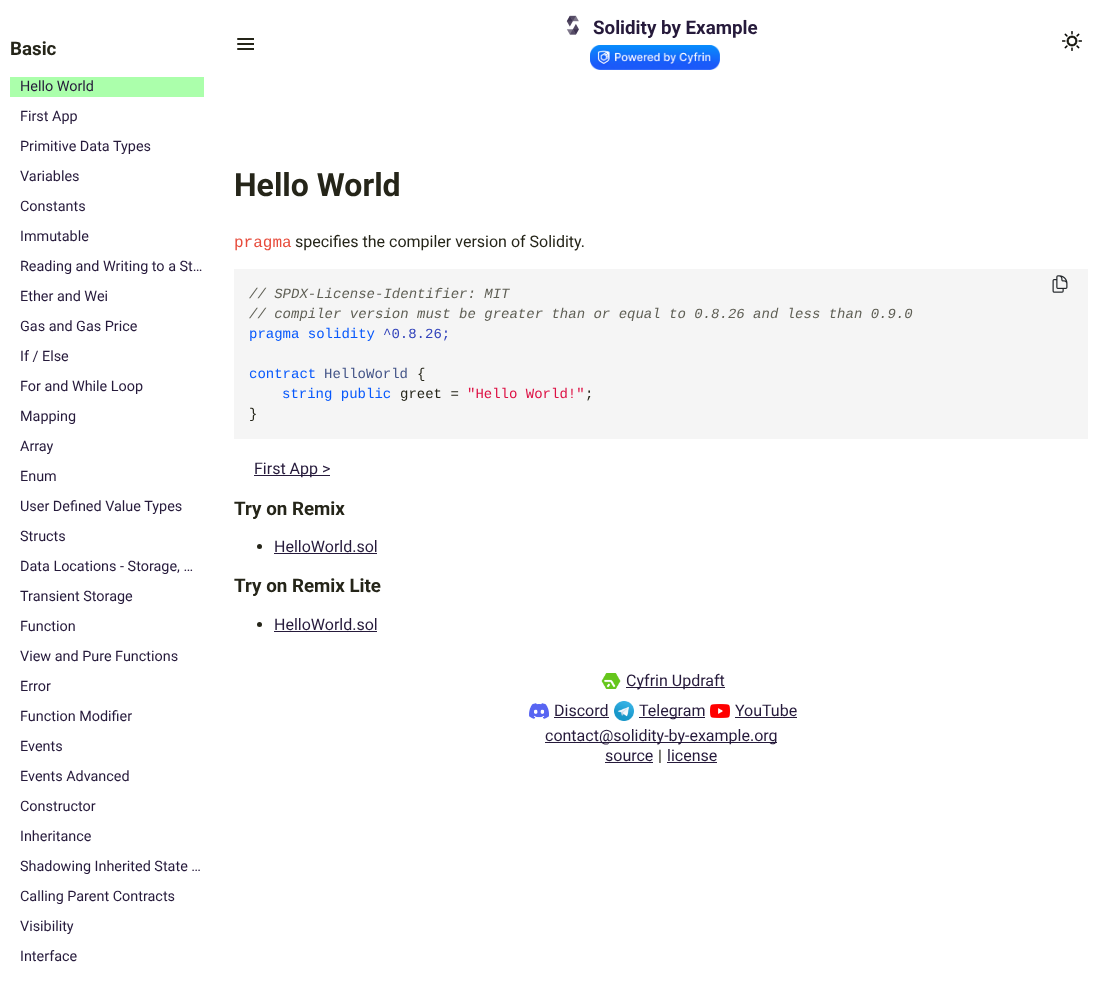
async function draw(canvas) {
	canvas.width = 1108;
	canvas.height = 987;
	const c = canvas.getContext('2d');
	c.miterLimit = 4;
	c.fontKerning = 'normal';
	async function loadImage(src) {
		const img = new Image();
		img.src = src;
		await img.decode();
		return img;
	}

	c.fillStyle = '#fff';
	c.fillRect(0, 0, 1108, 987);
	c.font = 'bold 18.75px Roboto';
	c.fillStyle = '#252519';
	c.fillText('Basic', 10, 55);
	c.fillStyle = '#abffab';
	c.fillRect(10, 77, 194, 20);
	c.font = '14.4px Roboto';
	c.fillStyle = '#261a3b';
	for (const [text, x, y] of [
		['Hello World', 20, 91],
		['First App', 20, 121],
		['Primitive Data Types', 20, 151],
		['Variables', 20, 181],
		['Constants', 20, 211],
		['Immutable', 20, 241],
		['Reading and Writing to a St…', 20, 271],
		['Ether and Wei', 20, 301],
		['Gas and Gas Price', 20, 331],
		['If / Else', 20, 361],
		['For and While Loop', 20, 391],
		['Mapping', 20, 421],
		['Array', 20, 451],
		['Enum', 20, 481],
		['User Defined Value Types', 20, 511],
		['Structs', 20, 541],
		['Data Locations - Storage, …', 20, 571],
		['Transient Storage', 20, 601],
		['Function', 20, 631],
		['View and Pure Functions', 20, 661],
		['Error', 20, 691],
		['Function Modifier', 20, 721],
		['Events', 20, 751],
		['Events Advanced', 20, 781],
		['Constructor', 20, 811],
		['Inheritance', 20, 841],
		['Shadowing Inherited State …', 20, 871],
		['Calling Parent Contracts', 20, 901],
		['Visibility', 20, 931],
		['Interface', 20, 961],
	]) {
		c.fillText(text, x, y);
	}
	c.drawImage(await loadImage('img1.png'), 566, 15, 13, 20);
	c.font = 'bold 18.75px Roboto';
	c.fillText('Solidity by Example', 593, 34);
	c.drawImage(await loadImage('img2.png'), 590, 45, 130, 25);
	c.save();
	c.beginPath();
	c.rect(234, 32, 20, 20);
	c.clip();
	c.beginPath();
	c.moveTo(238, 39);
	c.lineTo(254, 39);
	c.moveTo(238, 44);
	c.lineTo(254, 44);
	c.moveTo(238, 49);
	c.lineTo(254, 49);
	c.strokeStyle = '#252519';
	c.lineWidth = 2;
	c.lineCap = 'round';
	c.lineJoin = 'round';
	c.stroke();
	c.restore();
	c.drawImage(await loadImage('img3.png'), 1062, 31, 20, 20);
	c.font = 'bold 32px Roboto';
	c.fillStyle = '#252519';
	c.fillText('Hello World', 234, 196);
	c.font = '16px Liberation Mono';
	c.fillStyle = '#e74c3c';
	c.fillText('pragma', 234, 247);
	c.font = '16px Roboto';
	c.fillStyle = '#252519';
	c.fillText('specifies the compiler version of Solidity.', 295, 247);
	c.fillStyle = '#f5f5f5';
	c.fillRect(234, 269, 854, 170);
	c.drawImage(await loadImage('img4.png'), 1052, 275, 16, 18);
	c.font = 'italic 14px Liberation Mono';
	c.fillStyle = '#5f5f55';
	c.fillText('// SPDX-License-Identifier: MIT', 249, 298);
	c.fillText('// compiler version must be greater than or equal to 0.8.26 and less than 0.9.0', 249, 318);
	c.font = '14px Liberation Mono';
	c.fillStyle = '#0758fc';
	c.fillText('pragma solidity', 249, 338);
	c.fillStyle = '#34b';
	c.fillText('^0.8.26;', 383, 338);
	c.fillStyle = '#0758fc';
	c.fillText('contract', 249, 378);
	c.fillStyle = '#458';
	c.fillText('HelloWorld', 324, 378);
	c.fillStyle = '#252519';
	c.fillText('{', 417, 378);
	c.fillStyle = '#0758fc';
	c.fillText('string public', 282, 398);
	c.fillStyle = '#252519';
	c.fillText('greet =', 400, 398);
	c.fillStyle = '#d14';
	c.fillText('"Hello World!"', 467, 398);
	c.fillStyle = '#252519';
	c.fillText(';', 585, 398);
	c.fillText('}', 249, 418);
	c.fillStyle = '#261a3b';
	c.fillRect(254, 475, 76, 1);
	c.font = '16px Roboto';
	c.fillText('First App >', 254, 474);
	c.font = 'bold 18.75px Roboto';
	c.fillStyle = '#252519';
	c.fillText('Try on Remix', 234, 515);
	c.beginPath();
	c.arc(259.5, 546.5, 2.5, 0, 2 * Math.PI);
	c.fill();
	c.font = '16px Roboto';
	c.fillStyle = '#261a3b';
	c.fillText('HelloWorld.sol', 274, 552);
	c.fillRect(274, 553, 103, 1);
	c.font = 'bold 18.75px Roboto';
	c.fillStyle = '#252519';
	c.fillText('Try on Remix Lite', 234, 592);
	c.beginPath();
	c.arc(259.5, 624.5, 2.5, 0, 2 * Math.PI);
	c.fill();
	c.font = '16px Roboto';
	c.fillStyle = '#261a3b';
	c.fillText('HelloWorld.sol', 274, 630);
	c.fillRect(274, 631, 103, 1);
	c.drawImage(await loadImage('img5.png'), 601, 673, 20, 16);
	c.fillRect(626, 687, 99, 1);
	c.fillText('Cyfrin Updraft', 626, 686);
	c.drawImage(await loadImage('img6.png'), 529, 703, 20, 16);
	c.fillText('Discord', 554, 716);
	c.fillRect(554, 717, 55, 1);
	c.drawImage(await loadImage('img7.png'), 614, 701, 20, 20);
	c.fillRect(639, 717, 66, 1);
	c.fillText('Telegram', 639, 716);
	c.drawImage(await loadImage('img8.png'), 710, 704, 20, 14);
	c.fillText('YouTube', 735, 716);
	c.fillRect(735, 717, 62, 1);
	c.fillRect(545, 742, 232, 1);
	c.fillText('contact@solidity-by-example.org', 545, 741);
	c.fillText('source', 605, 761);
	c.fillRect(605, 762, 48, 1);
	c.fillStyle = '#252519';
	c.fillText('|', 658, 761);
	c.fillStyle = '#261a3b';
	c.fillText('license', 667, 761);
	c.fillRect(667, 762, 50, 1);
}

draw(document.querySelector('canvas'));
